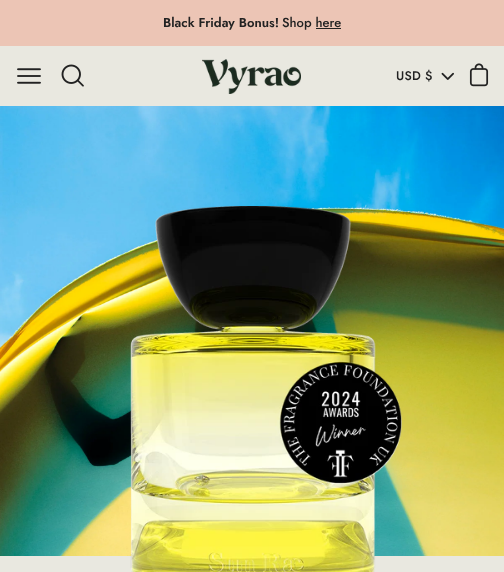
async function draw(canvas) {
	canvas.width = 504;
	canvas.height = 572;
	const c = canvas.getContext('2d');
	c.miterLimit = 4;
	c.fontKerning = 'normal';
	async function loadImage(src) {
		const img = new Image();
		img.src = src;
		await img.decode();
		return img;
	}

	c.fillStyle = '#e9e8e0';
	c.fillRect(0, 0, 504, 572);
	c.fillStyle = '#ecc5b5';
	c.fillRect(0, 0, 504, 46);
	c.font = '600 13px Jost';
	c.fillStyle = '#222';
	c.fillText('Black Friday Bonus!', 163, 27);
	c.font = '500 13px Jost';
	c.fillText('Shop here', 282, 27);
	c.fillRect(316, 28, 25, 1);
	c.drawImage(await loadImage('img1.png'), 17, 68, 24, 16);
	c.drawImage(await loadImage('img2.png'), 61, 64, 23, 23);
	c.drawImage(await loadImage('img3.png'), 202, 59, 99, 35);
	c.letterSpacing = '0.25px';
	c.font = '500 12.5px Jost';
	c.fillText('USD $', 396, 80);
	c.drawImage(await loadImage('img4.png'), 441, 72, 13, 8);
	c.drawImage(await loadImage('img5.png'), 469, 63, 20, 24);
	c.drawImage(await loadImage('img6.png'), 0, 106, 504, 450);
	c.drawImage(await loadImage('img7.png'), 130, 206, 272, 366);
}

draw(document.querySelector('canvas'));
